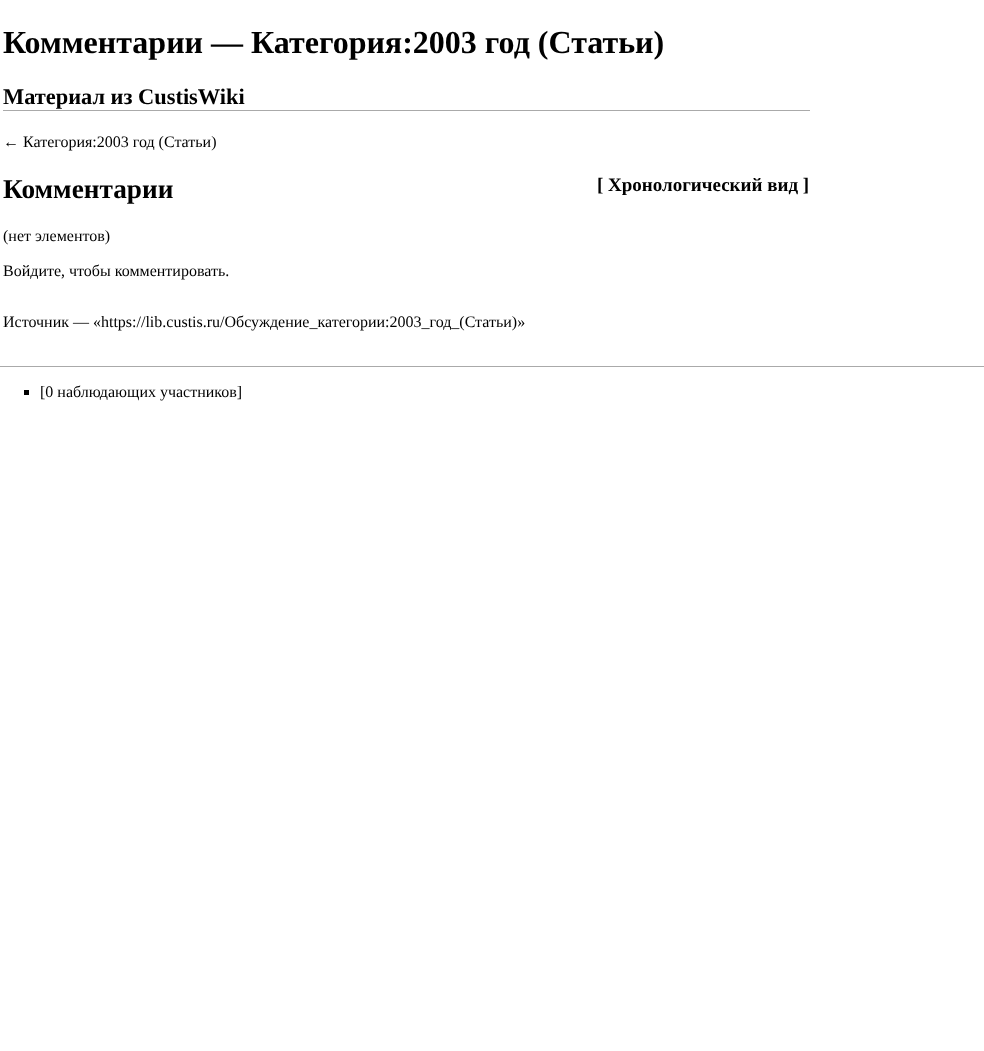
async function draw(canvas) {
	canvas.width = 984;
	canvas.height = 1051;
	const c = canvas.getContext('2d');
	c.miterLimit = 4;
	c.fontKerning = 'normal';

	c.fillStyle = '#fff';
	c.fillRect(0, 0, 984, 1051);
	c.font = 'bold 32px Liberation Serif';
	c.fillStyle = '#000';
	c.fillText('Комментарии — Категория:2003 год (Статьи)', 3, 53);
	c.fillStyle = '#aaa';
	c.fillRect(3, 110, 807, 1);
	c.font = 'bold 22.4px Liberation Serif';
	c.fillStyle = '#000';
	c.fillText('Материал из CustisWiki', 3, 104);
	c.font = '16px Liberation Serif';
	c.fillText('← Категория:2003 год (Статьи)', 3, 147);
	c.font = 'bold 27.25px Liberation Serif';
	c.fillText('Комментарии', 3, 198);
	c.font = 'bold 19px Liberation Serif';
	c.fillText('[ Хронологический вид ]', 597, 191);
	c.font = '16px Liberation Serif';
	for (const [text, x, y] of [
		['(нет элементов)', 3, 241],
		['Войдите, чтобы комментировать.', 3, 276],
		['Источник — «https://lib.custis.ru/Обсуждение_категории:2003_год_(Статьи)»', 3, 327],
	]) {
		c.fillText(text, x, y);
	}
	c.fillStyle = '#aaa';
	c.fillRect(0, 366, 984, 1);
	c.fillStyle = '#000';
	c.fillRect(24, 390, 5, 5);
	c.fillText('[0 наблюдающих участников]', 40, 397);
}

draw(document.querySelector('canvas'));
